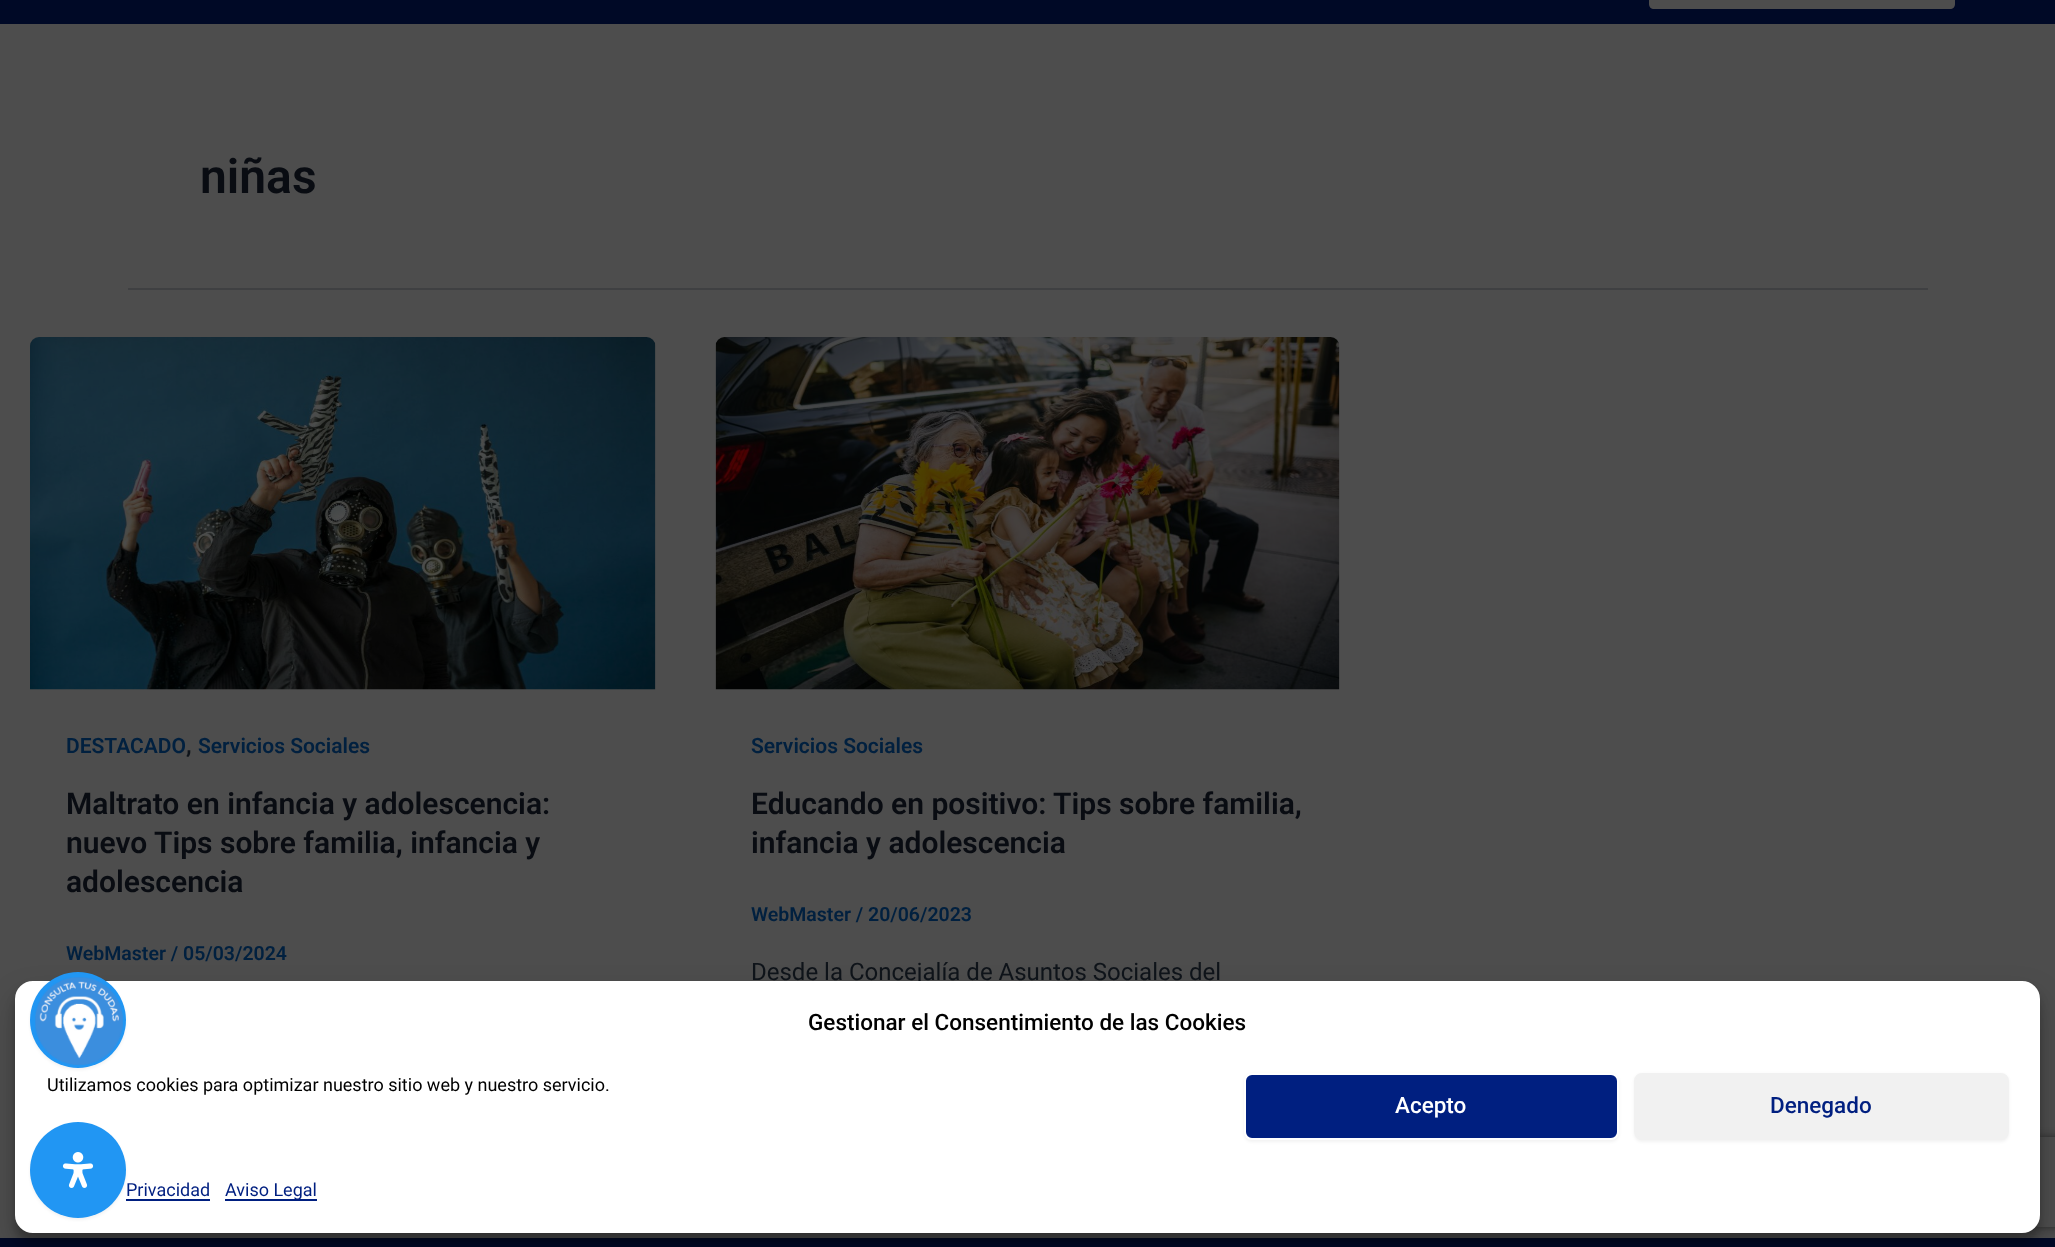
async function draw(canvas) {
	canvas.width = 2055;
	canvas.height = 1247;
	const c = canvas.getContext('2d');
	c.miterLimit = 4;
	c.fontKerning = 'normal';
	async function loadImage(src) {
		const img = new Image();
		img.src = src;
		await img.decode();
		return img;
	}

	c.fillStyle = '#4d4d4d';
	c.fillRect(0, 0, 2055, 1247);
	c.fillStyle = '#000926';
	c.fillRect(0, 0, 2055, 24);
	c.fillStyle = '#4d4d4d';
	c.beginPath();
	c.moveTo(1654, -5);
	c.lineTo(1910, -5);
	c.lineTo(1910, 9);
	c.lineTo(1654, 9);
	c.bezierCurveTo(1651, 9, 1649, 7, 1649, 4);
	c.lineTo(1649, 0);
	c.bezierCurveTo(1649, -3, 1651, -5, 1654, -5);
	c.closePath();
	c.fill();
	c.beginPath();
	c.moveTo(1910, -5);
	c.lineTo(1950, -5);
	c.bezierCurveTo(1953, -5, 1955, -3, 1955, 0);
	c.lineTo(1955, 4);
	c.bezierCurveTo(1955, 7, 1953, 9, 1950, 9);
	c.lineTo(1910, 9);
	c.closePath();
	c.fill();
	c.fillStyle = '#3f4042';
	c.fillRect(128, 288, 1800, 2);
	c.font = '600 48px Roboto';
	c.fillStyle = '#090c12';
	c.fillText('niñas', 200, 193);
	c.drawImage(await loadImage('img1.png'), 30, 337, 626, 353);
	c.font = '600 21px Roboto';
	c.fillStyle = '#01203f';
	c.fillText('DESTACADO', 66, 753);
	c.font = '600 24px Roboto';
	c.fillStyle = '#0f141a';
	c.fillText(',', 186, 753);
	c.font = '600 21px Roboto';
	c.fillStyle = '#01203f';
	c.fillText('Servicios Sociales', 198, 753);
	c.font = '600 30px Roboto';
	c.fillStyle = '#090c12';
	for (const [text, x, y] of [
		['Maltrato en infancia y adolescencia:', 66, 814],
		['nuevo Tips sobre familia, infancia y', 66, 853],
		['adolescencia', 66, 892],
	]) {
		c.fillText(text, x, y);
	}
	c.font = '600 19.5px Roboto';
	c.fillStyle = '#01203f';
	c.fillText('WebMaster / 05/03/2024', 66, 960);
	c.drawImage(await loadImage('img2.png'), 715, 337, 625, 353);
	c.font = '600 21px Roboto';
	c.fillText('Servicios Sociales', 751, 753);
	c.font = '600 30px Roboto';
	c.fillStyle = '#090c12';
	c.fillText('Educando en positivo: Tips sobre familia,', 751, 814);
	c.fillText('infancia y adolescencia', 751, 853);
	c.font = '600 19.5px Roboto';
	c.fillStyle = '#01203f';
	c.fillText('WebMaster / 20/06/2023', 751, 921);
	c.font = '24px Roboto';
	c.fillStyle = '#0f141a';
	c.fillText('Desde la Concejalía de Asuntos Sociales del', 751, 980);
	c.fillStyle = '#000926';
	c.fillRect(0, 1238, 2055, 9);
	c.fillStyle = '#0000003b';
	c.filter = 'blur(4.5px)';
	c.beginPath();
	c.roundRect(15, 990, 2025, 252, 18);
	c.fill();
	c.filter = 'none';
	c.fillStyle = '#00000030';
	c.filter = 'blur(15px)';
	c.beginPath();
	c.roundRect(15, 996, 2025, 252, 18);
	c.fill();
	c.filter = 'none';
	c.save();
	c.beginPath();
	c.moveTo(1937, 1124);
	c.lineTo(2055, 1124);
	c.lineTo(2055, 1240);
	c.lineTo(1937, 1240);
	c.closePath();
	c.moveTo(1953, 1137);
	c.lineTo(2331, 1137);
	c.bezierCurveTo(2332.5, 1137, 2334, 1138.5, 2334, 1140);
	c.lineTo(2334, 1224);
	c.bezierCurveTo(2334, 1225.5, 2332.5, 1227, 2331, 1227);
	c.lineTo(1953, 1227);
	c.bezierCurveTo(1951.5, 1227, 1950, 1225.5, 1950, 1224);
	c.lineTo(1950, 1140);
	c.bezierCurveTo(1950, 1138.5, 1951.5, 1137, 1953, 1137);
	c.closePath();
	c.clip('evenodd');
	c.fillStyle = '#262626';
	c.filter = 'blur(4px)';
	c.beginPath();
	c.roundRect(1950, 1137, 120, 90, 3);
	c.fill();
	c.filter = 'none';
	c.restore();
	c.fillStyle = '#fff';
	c.beginPath();
	c.roundRect(16, 982, 2023, 250, 17);
	c.fill();
	c.strokeStyle = '#fff';
	c.lineWidth = 2;
	c.stroke();
	c.fillStyle = '#0000000d';
	c.filter = 'blur(1.5px)';
	c.beginPath();
	c.roundRect(30, 974, 96, 96, 48);
	c.fill();
	c.filter = 'none';
	c.fillStyle = '#2196f3';
	c.beginPath();
	c.arc(78, 1020, 48, 0, 2 * Math.PI);
	c.fill();
	c.drawImage(await loadImage('img3.png'), 35, 977, 88, 88);
	c.font = '500 22.5px Roboto';
	c.fillStyle = '#000';
	c.fillText('Gestionar el Consentimiento de las Cookies', 808, 1030);
	c.font = '18px Roboto';
	c.fillText('Utilizamos cookies para optimizar nuestro sitio web y nuestro servicio.', 47, 1091);
	c.fillStyle = '#0000000d';
	c.filter = 'blur(1.5px)';
	c.beginPath();
	c.roundRect(1244, 1074, 375, 68, 8);
	c.fill();
	c.filter = 'none';
	c.fillStyle = '#001f80';
	c.beginPath();
	c.roundRect(1245, 1074, 373, 65, 7);
	c.fill();
	c.stroke();
	c.font = '500 22.5px Roboto';
	c.fillStyle = '#fff';
	c.fillText('Acepto', 1395, 1113);
	c.fillStyle = '#0000000d';
	c.filter = 'blur(1.5px)';
	c.beginPath();
	c.roundRect(1634, 1074, 375, 68, 8);
	c.fill();
	c.filter = 'none';
	c.fillStyle = '#f1f1f1';
	c.beginPath();
	c.roundRect(1635, 1074, 373, 65, 7);
	c.fill();
	c.strokeStyle = '#f1f1f1';
	c.stroke();
	c.fillStyle = '#001f80';
	c.fillText('Denegado', 1770, 1113);
	c.font = '18px Roboto';
	c.fillText('Privacidad', 126, 1196);
	c.fillRect(126, 1199, 84, 2);
	c.fillRect(225, 1199, 92, 2);
	c.fillText('Aviso Legal', 225, 1196);
	c.fillStyle = '#0000000d';
	c.filter = 'blur(1.5px)';
	c.beginPath();
	c.roundRect(30, 1124, 96, 96, 48);
	c.fill();
	c.filter = 'none';
	c.fillStyle = '#2196f3';
	c.beginPath();
	c.arc(78, 1170, 48, 0, 2 * Math.PI);
	c.fill();
	c.drawImage(await loadImage('img4.png'), 62, 1152, 32, 36);
}

draw(document.querySelector('canvas'));
